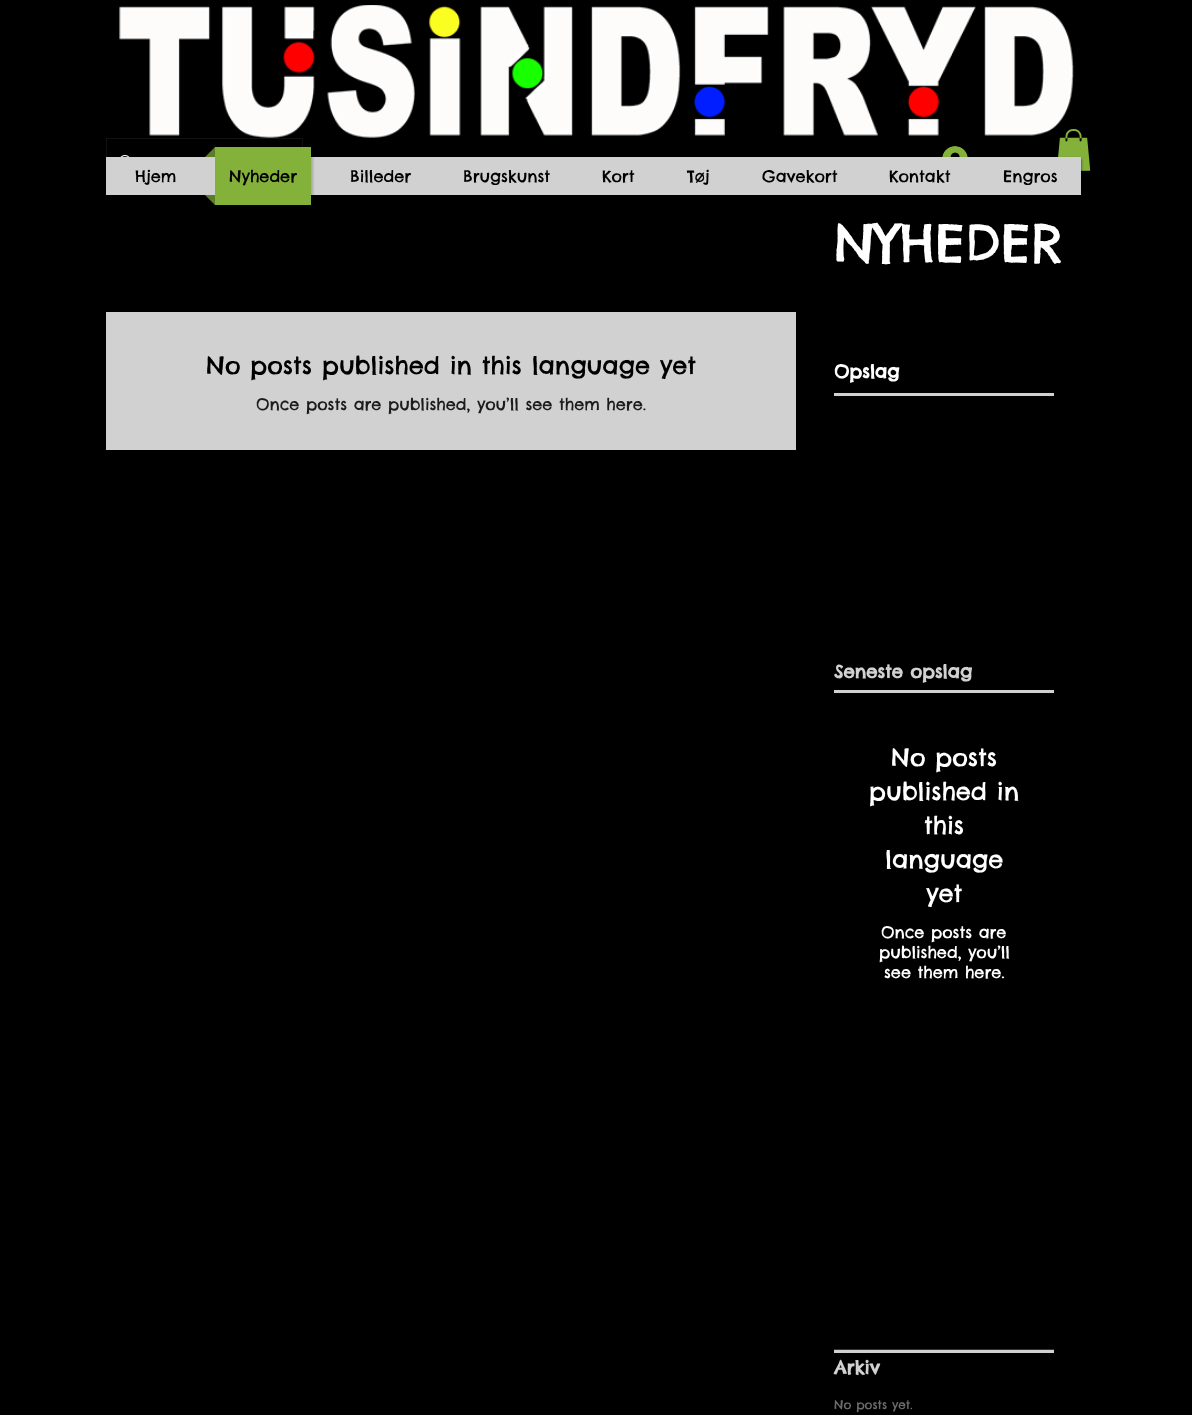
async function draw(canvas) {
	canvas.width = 1192;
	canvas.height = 1415;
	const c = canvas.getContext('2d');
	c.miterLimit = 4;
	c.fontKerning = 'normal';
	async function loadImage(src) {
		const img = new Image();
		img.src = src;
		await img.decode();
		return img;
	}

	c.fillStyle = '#000';
	c.fillRect(0, 0, 1192, 1415);
	c.drawImage(await loadImage('img1.png'), 106, 5, 981, 135);
	c.strokeStyle = '#111';
	c.strokeRect(106.5, 138.5, 196, 46);
	c.drawImage(await loadImage('img2.png'), 120, 155, 10, 2);
	c.drawImage(await loadImage('img3.png'), 942, 146, 26, 11);
	c.drawImage(await loadImage('img4.png'), 1058, 129, 33, 42);
	c.fillStyle = '#000000b3';
	c.filter = 'blur(1.5px)';
	c.beginPath();
	c.rect(106, 159, 975, 38);
	c.fill();
	c.filter = 'none';
	c.fillStyle = '#d1d1d1';
	c.fillRect(106, 157, 975, 38);
	c.font = '16px Chelsea Market';
	c.fillStyle = '#000';
	c.fillText('Hjem', 135, 182);
	c.fillStyle = '#00000033';
	c.filter = 'blur(1px)';
	c.beginPath();
	c.rect(217, 147, 96, 58);
	c.fill();
	c.filter = 'none';
	c.fillStyle = '#5c7c29';
	c.beginPath();
	c.moveTo(215, 157);
	c.lineTo(205, 157);
	c.lineTo(215, 147);
	c.closePath();
	c.moveTo(205, 195);
	c.lineTo(215, 195);
	c.lineTo(215, 205);
	c.closePath();
	c.fill();
	c.fillStyle = '#83b13a';
	c.fillRect(215, 147, 96, 58);
	c.fillStyle = '#000';
	for (const [text, x, y] of [
		['Nyheder', 229, 182],
		['Billeder', 350, 182],
		['Brugskunst', 463, 182],
		['Kort', 602, 182],
		['Tøj', 687, 182],
		['Gavekort', 762, 182],
		['Kontakt', 889, 182],
		['Engros', 1003, 182],
	]) {
		c.fillText(text, x, y);
	}
	c.font = '52px Chelsea Market';
	c.fillStyle = '#fff';
	c.fillText('NYHEDER', 834, 262);
	c.fillStyle = '#d1d1d1';
	c.fillRect(106, 312, 690, 138);
	c.font = '24px Chelsea Market';
	c.fillStyle = '#000';
	c.fillText('No posts published in this language yet', 206, 374);
	c.font = '16px Chelsea Market';
	c.fillStyle = '#1c1c1c';
	c.fillText('Once posts are published, you’ll see them here.', 256, 410);
	c.font = 'bold 18px Chelsea Market';
	c.fillStyle = '#fff';
	c.fillText('Opslag', 834, 378);
	c.fillStyle = '#d1d1d1';
	c.fillRect(834, 393, 220, 3);
	c.fillText('Seneste opslag', 834, 678);
	c.fillRect(834, 690, 220, 3);
	c.font = '24px Chelsea Market';
	c.fillStyle = '#fff';
	for (const [text, x, y] of [
		['No posts', 891, 766],
		['published in', 869, 800],
		['this', 924, 834],
		['language', 885, 868],
		['yet', 926, 902],
	]) {
		c.fillText(text, x, y);
	}
	c.font = '16px Chelsea Market';
	for (const [text, x, y] of [
		['Once posts are', 881, 938],
		['published, you’ll', 879, 958],
		['see them here.', 884, 978],
	]) {
		c.fillText(text, x, y);
	}
	c.fillStyle = '#333';
	c.fillRect(834, 1349, 220, 1);
	c.fillStyle = '#d1d1d1';
	c.fillRect(834, 1350, 220, 3);
	c.font = 'bold 18px Chelsea Market';
	c.fillText('Arkiv', 834, 1374);
	c.font = '12px Chelsea Market';
	c.fillStyle = '#6d6d6d';
	c.fillText('No posts yet.', 834, 1409);
}

draw(document.querySelector('canvas'));
